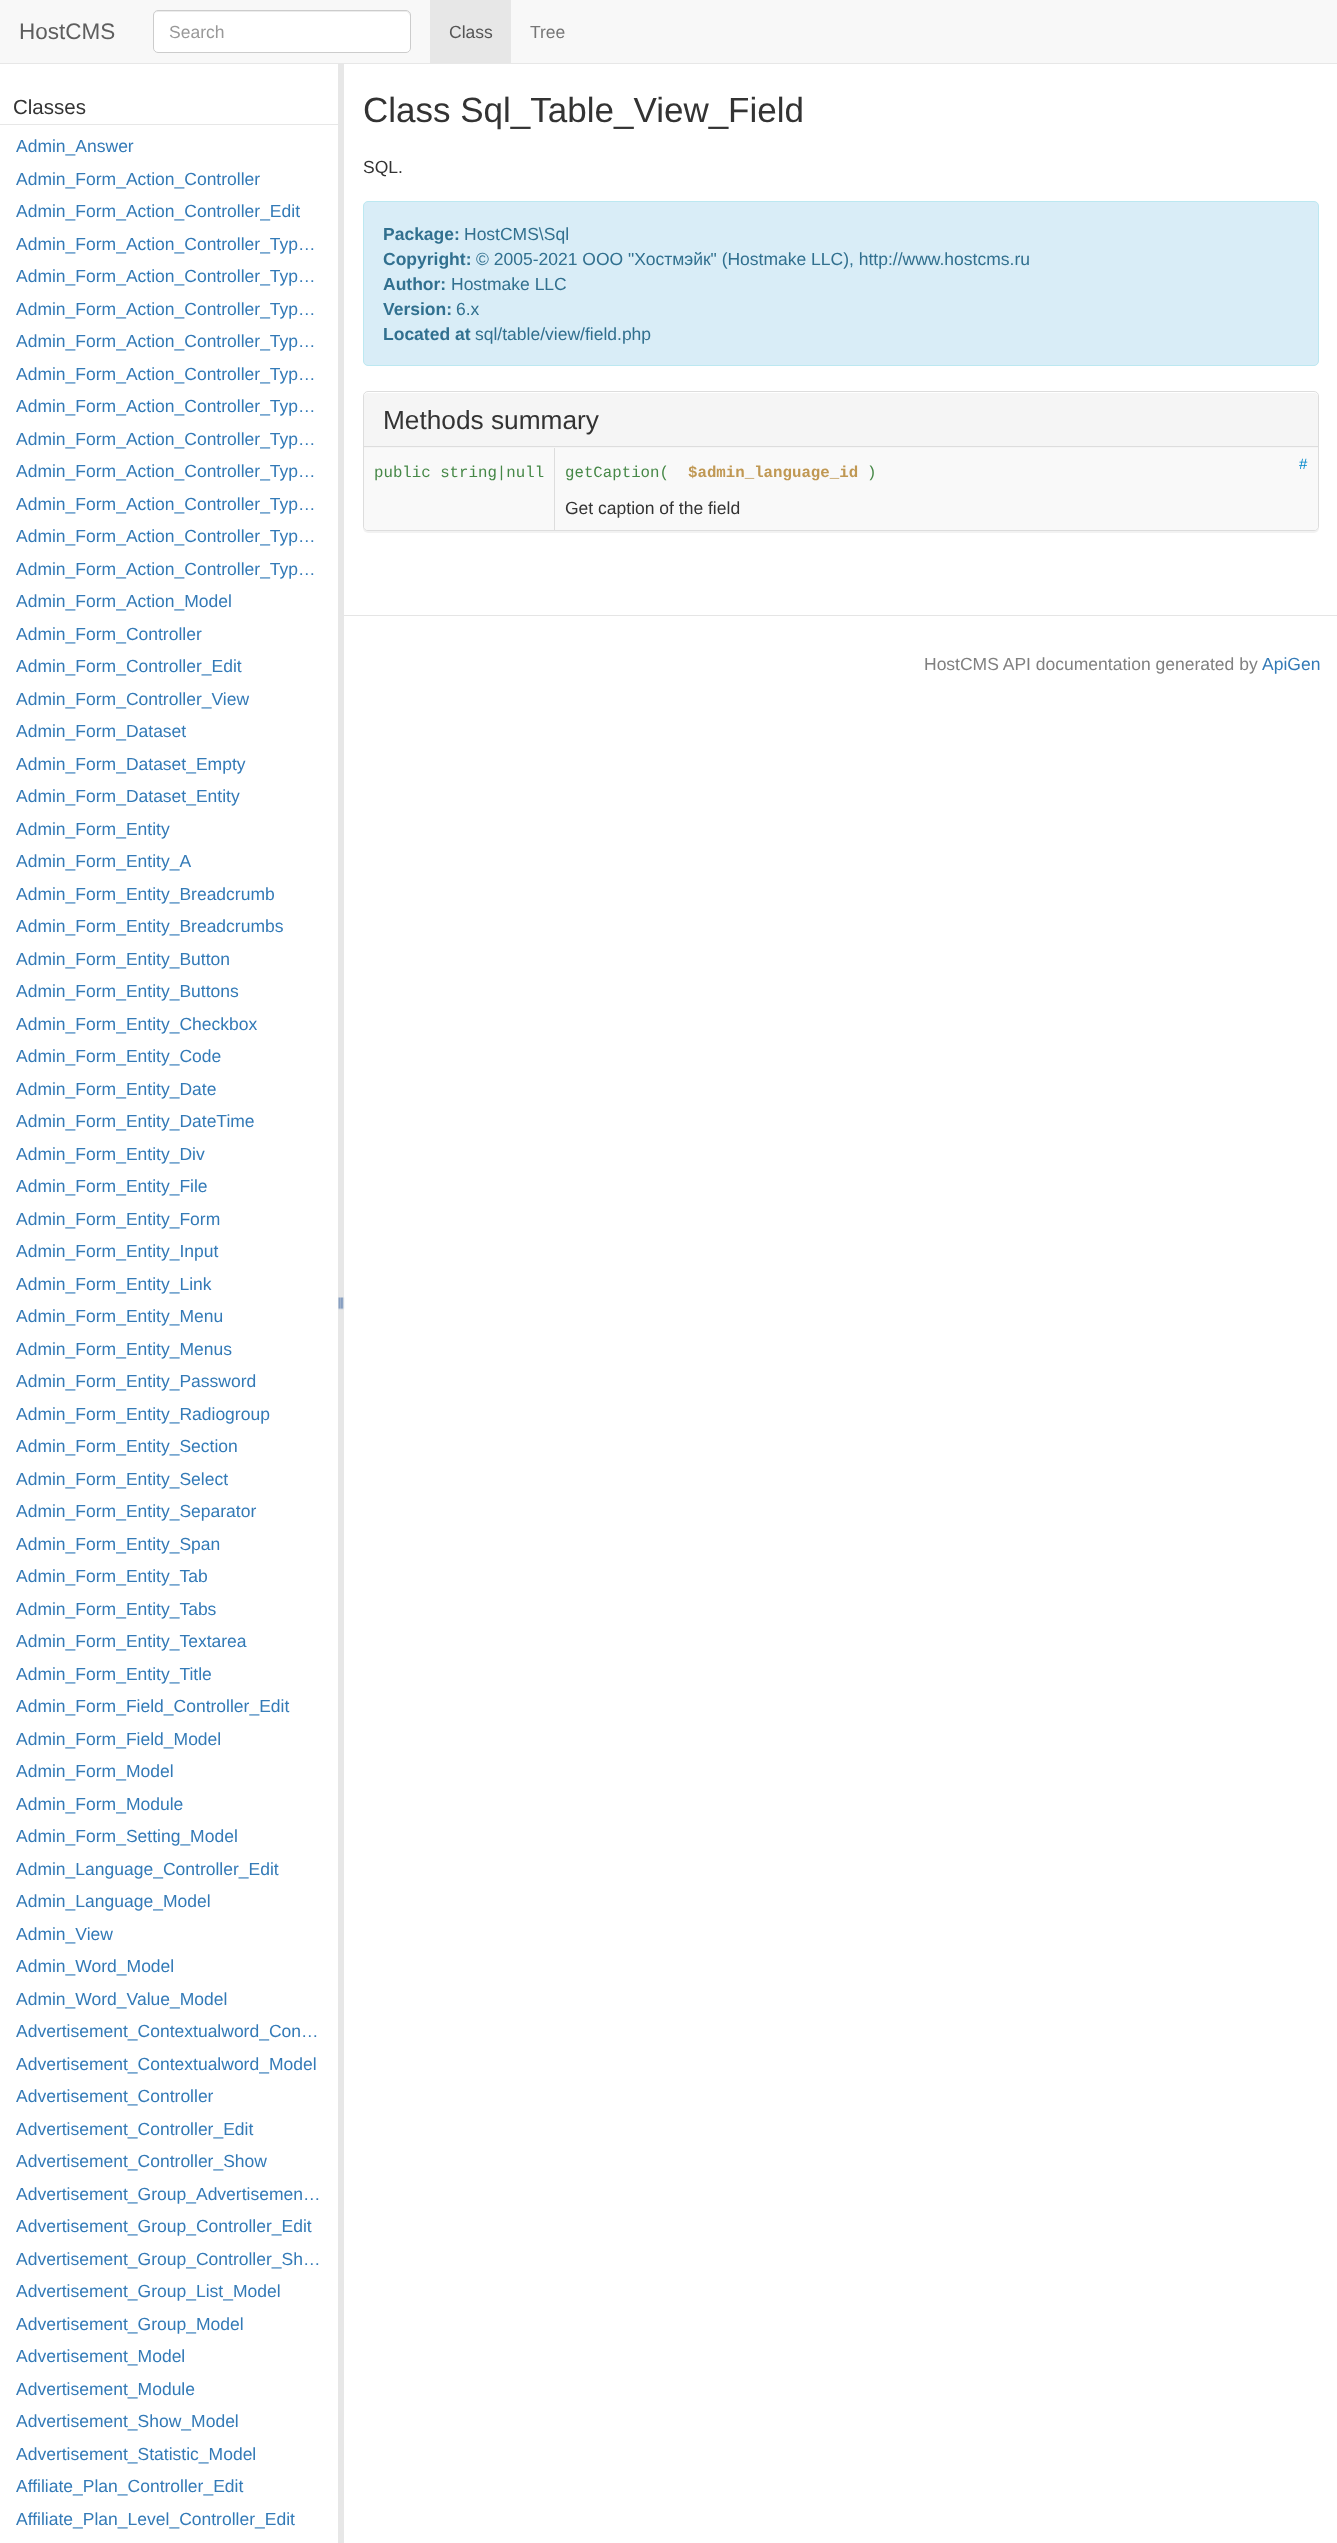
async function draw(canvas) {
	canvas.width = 1337;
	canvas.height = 2543;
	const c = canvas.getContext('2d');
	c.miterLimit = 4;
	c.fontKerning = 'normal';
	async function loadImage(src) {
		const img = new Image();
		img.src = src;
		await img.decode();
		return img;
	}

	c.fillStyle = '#fff';
	c.fillRect(0, 0, 1337, 2543);
	for (const [x, y, w, h, color] of [
		[0, 0, 1337, 63, '#f8f8f8'],
		[338, 63, 6, 2480, '#e7e7e7'],
		[0, 63, 1337, 1, '#e7e7e7'],
	]) {
		c.fillStyle = color;
		c.fillRect(x, y, w, h);
	}
	c.font = '22.5px Liberation Sans';
	c.fillStyle = '#5e5e5e';
	c.fillText('HostCMS', 19, 39);
	c.fillStyle = '#fff';
	c.beginPath();
	c.roundRect(153, 10, 258, 43, 5);
	c.fill();
	c.fillStyle = '#ececec';
	c.beginPath();
	c.moveTo(158, 12);
	c.lineTo(407, 12);
	c.lineTo(409, 14);
	c.lineTo(410, 16);
	c.lineTo(410, 15);
	c.bezierCurveTo(410, 13, 408, 11, 406, 11);
	c.lineTo(158, 11);
	c.bezierCurveTo(156, 11, 154, 13, 154, 15);
	c.lineTo(154, 16);
	c.bezierCurveTo(154, 14, 155, 12, 158, 12);
	c.closePath();
	c.fill();
	c.beginPath();
	c.roundRect(153.5, 10.5, 257, 42, 4.5);
	c.strokeStyle = '#ccc';
	c.stroke();
	c.font = '17.5px Liberation Sans';
	c.fillStyle = '#999';
	c.fillText('Search', 169, 38);
	c.fillStyle = '#e7e7e7';
	c.fillRect(430, 0, 81, 63);
	c.fillStyle = '#555';
	c.fillText('Class', 449, 38);
	c.fillStyle = '#777';
	c.fillText('Tree', 530, 38);
	c.fillStyle = '#e7e7e7';
	c.fillRect(0, 124, 338, 1);
	c.font = '20.5px Liberation Sans';
	c.fillStyle = '#333';
	c.fillText('Classes', 13, 114);
	c.font = '17.5px Liberation Sans';
	c.fillStyle = '#337ab7';
	for (const [text, x, y] of [
		['Admin_Answer', 16, 152],
		['Admin_Form_Action_Controller', 16, 185],
		['Admin_Form_Action_Controller_Edit', 16, 217],
		['Admin_Form_Action_Controller_Typ…', 16, 250],
		['Admin_Form_Action_Controller_Typ…', 16, 282],
		['Admin_Form_Action_Controller_Typ…', 16, 315],
		['Admin_Form_Action_Controller_Typ…', 16, 347],
		['Admin_Form_Action_Controller_Typ…', 16, 380],
		['Admin_Form_Action_Controller_Typ…', 16, 412],
		['Admin_Form_Action_Controller_Typ…', 16, 445],
		['Admin_Form_Action_Controller_Typ…', 16, 477],
		['Admin_Form_Action_Controller_Typ…', 16, 510],
		['Admin_Form_Action_Controller_Typ…', 16, 542],
		['Admin_Form_Action_Controller_Typ…', 16, 575],
		['Admin_Form_Action_Model', 16, 607],
		['Admin_Form_Controller', 16, 640],
		['Admin_Form_Controller_Edit', 16, 672],
		['Admin_Form_Controller_View', 16, 705],
		['Admin_Form_Dataset', 16, 737],
		['Admin_Form_Dataset_Empty', 16, 770],
		['Admin_Form_Dataset_Entity', 16, 802],
		['Admin_Form_Entity', 16, 835],
		['Admin_Form_Entity_A', 16, 867],
		['Admin_Form_Entity_Breadcrumb', 16, 900],
		['Admin_Form_Entity_Breadcrumbs', 16, 932],
		['Admin_Form_Entity_Button', 16, 965],
		['Admin_Form_Entity_Buttons', 16, 997],
		['Admin_Form_Entity_Checkbox', 16, 1030],
		['Admin_Form_Entity_Code', 16, 1062],
		['Admin_Form_Entity_Date', 16, 1095],
		['Admin_Form_Entity_DateTime', 16, 1127],
		['Admin_Form_Entity_Div', 16, 1160],
		['Admin_Form_Entity_File', 16, 1192],
		['Admin_Form_Entity_Form', 16, 1225],
		['Admin_Form_Entity_Input', 16, 1257],
		['Admin_Form_Entity_Link', 16, 1290],
		['Admin_Form_Entity_Menu', 16, 1322],
		['Admin_Form_Entity_Menus', 16, 1355],
		['Admin_Form_Entity_Password', 16, 1387],
		['Admin_Form_Entity_Radiogroup', 16, 1420],
		['Admin_Form_Entity_Section', 16, 1452],
		['Admin_Form_Entity_Select', 16, 1485],
		['Admin_Form_Entity_Separator', 16, 1517],
		['Admin_Form_Entity_Span', 16, 1550],
		['Admin_Form_Entity_Tab', 16, 1582],
		['Admin_Form_Entity_Tabs', 16, 1615],
		['Admin_Form_Entity_Textarea', 16, 1647],
		['Admin_Form_Entity_Title', 16, 1680],
		['Admin_Form_Field_Controller_Edit', 16, 1712],
		['Admin_Form_Field_Model', 16, 1745],
		['Admin_Form_Model', 16, 1777],
		['Admin_Form_Module', 16, 1810],
		['Admin_Form_Setting_Model', 16, 1842],
		['Admin_Language_Controller_Edit', 16, 1875],
		['Admin_Language_Model', 16, 1907],
		['Admin_View', 16, 1940],
		['Admin_Word_Model', 16, 1972],
		['Admin_Word_Value_Model', 16, 2005],
		['Advertisement_Contextualword_Con…', 16, 2037],
		['Advertisement_Contextualword_Model', 16, 2070],
		['Advertisement_Controller', 16, 2102],
		['Advertisement_Controller_Edit', 16, 2135],
		['Advertisement_Controller_Show', 16, 2167],
		['Advertisement_Group_Advertisemen…', 16, 2200],
		['Advertisement_Group_Controller_Edit', 16, 2232],
		['Advertisement_Group_Controller_Sh…', 16, 2265],
		['Advertisement_Group_List_Model', 16, 2297],
		['Advertisement_Group_Model', 16, 2330],
		['Advertisement_Model', 16, 2362],
		['Advertisement_Module', 16, 2395],
		['Advertisement_Show_Model', 16, 2427],
		['Advertisement_Statistic_Model', 16, 2460],
		['Affiliate_Plan_Controller_Edit', 16, 2492],
		['Affiliate_Plan_Level_Controller_Edit', 16, 2525],
	]) {
		c.fillText(text, x, y);
	}
	c.drawImage(await loadImage('img1.png'), 338, 1297, 7, 13);
	c.font = '35px Liberation Sans';
	c.fillStyle = '#333';
	c.fillText('Class Sql_Table_View_Field', 363, 122);
	c.font = '17.5px Liberation Sans';
	c.fillText('SQL.', 363, 173);
	c.fillStyle = '#d9edf7';
	c.beginPath();
	c.roundRect(363.5, 201.5, 955, 164, 4.5);
	c.fill();
	c.strokeStyle = '#bce8f1';
	c.stroke();
	c.font = 'bold 17.5px Liberation Sans';
	c.fillStyle = '#31708f';
	c.fillText('Package:', 383, 240);
	c.font = '17.5px Liberation Sans';
	c.fillText('HostCMS\\Sql', 464, 240);
	c.font = 'bold 17.5px Liberation Sans';
	c.fillText('Copyright:', 383, 265);
	c.font = '17.5px Liberation Sans';
	c.fillText('© 2005-2021 ООО "Хостмэйк" (Hostmake LLC), http://www.hostcms.ru', 476, 265);
	c.font = 'bold 17.5px Liberation Sans';
	c.fillText('Author:', 383, 290);
	c.font = '17.5px Liberation Sans';
	c.fillText('Hostmake LLC', 451, 290);
	c.font = 'bold 17.5px Liberation Sans';
	c.fillText('Version:', 383, 315);
	c.font = '17.5px Liberation Sans';
	c.fillText('6.x', 456, 315);
	c.font = 'bold 17.5px Liberation Sans';
	c.fillText('Located at', 383, 340);
	c.font = '17.5px Liberation Sans';
	c.fillText('sql/table/view/field.php', 475, 340);
	c.fillStyle = '#0000000d';
	c.filter = 'blur(0.5px)';
	c.beginPath();
	c.roundRect(363, 393, 956, 140, 5);
	c.fill();
	c.filter = 'none';
	c.fillStyle = '#fff';
	c.beginPath();
	c.roundRect(363.5, 391.5, 955, 139, 4.5);
	c.fill();
	c.strokeStyle = '#ddd';
	c.stroke();
	c.fillStyle = '#f5f5f5';
	c.beginPath();
	c.roundRect(364, 393, 954, 55, [4, 4, 0, 0]);
	c.fill();
	c.fillStyle = '#ddd';
	c.fillRect(364, 446, 954, 1);
	c.font = '26.25px Liberation Sans';
	c.fillStyle = '#333';
	c.fillText('Methods summary', 383, 429);
	c.fillStyle = '#f9f9f9';
	c.beginPath();
	c.roundRect(364, 448, 954, 82, [0, 0, 4, 4]);
	c.fill();
	c.font = '15.75px Liberation Mono';
	c.fillStyle = '#468847';
	c.fillText('public string|null', 374, 477);
	c.fillStyle = '#ddd';
	c.fillRect(554, 448, 1, 83);
	c.font = '15px Liberation Sans';
	c.fillStyle = '#08c';
	c.fillText('#', 1299, 469);
	c.font = '15.75px Liberation Mono';
	c.fillStyle = '#468847';
	c.fillText('getCaption(', 565, 477);
	c.font = 'bold 15.75px Liberation Mono';
	c.fillStyle = '#c09853';
	c.fillText('$admin_language_id', 688, 477);
	c.font = '15.75px Liberation Mono';
	c.fillStyle = '#468847';
	c.fillText(')', 867, 477);
	c.font = '17.5px Liberation Sans';
	c.fillStyle = '#333';
	c.fillText('Get caption of the field', 565, 514);
	c.fillStyle = '#e5e5e5';
	c.fillRect(344, 615, 993, 1);
	c.fillStyle = '#808080';
	c.fillText('HostCMS API documentation generated by', 924, 670);
	c.fillStyle = '#337ab7';
	c.fillText('ApiGen', 1262, 670);
}

draw(document.querySelector('canvas'));
